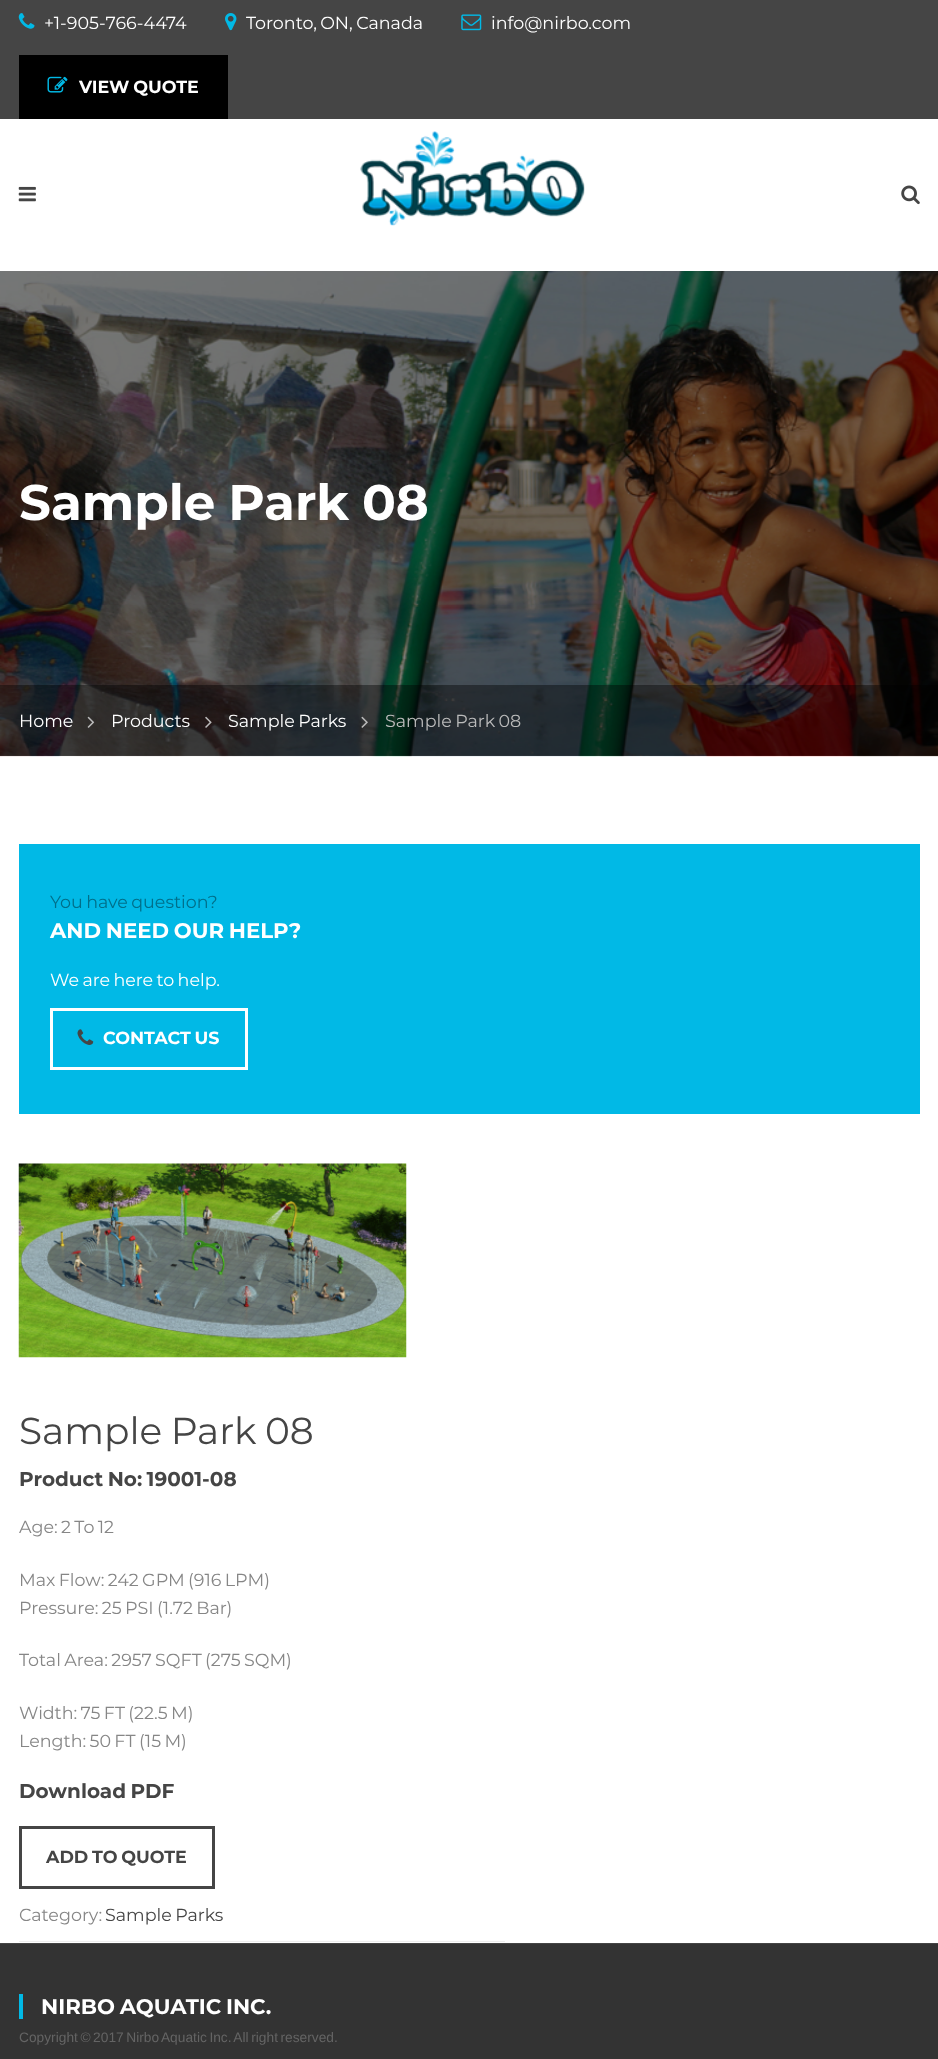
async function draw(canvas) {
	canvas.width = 938;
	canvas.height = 2059;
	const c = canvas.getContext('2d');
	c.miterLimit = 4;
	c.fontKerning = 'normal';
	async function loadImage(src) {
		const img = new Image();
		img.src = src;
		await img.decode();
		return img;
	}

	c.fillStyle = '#fff';
	c.fillRect(0, 0, 938, 2059);
	c.fillStyle = '#454545';
	c.fillRect(0, 0, 938, 119);
	c.drawImage(await loadImage('img1.png'), 18, 13, 17, 16);
	c.font = '17.5px Montserrat';
	c.fillStyle = '#fff';
	c.fillText('+1-905-766-4474', 44, 29);
	c.drawImage(await loadImage('img2.png'), 225, 13, 12, 18);
	c.wordSpacing = '-1.25px';
	c.fillText('Toronto, ON, Canada', 246, 29);
	c.drawImage(await loadImage('img3.png'), 461, 14, 21, 17);
	c.wordSpacing = '0px';
	c.fillText('info@nirbo.com', 491, 29);
	c.fillStyle = '#000';
	c.fillRect(19, 55, 209, 64);
	c.drawImage(await loadImage('img4.png'), 47, 76, 21, 17);
	c.wordSpacing = '-1.25px';
	c.font = 'bold 17.5px Montserrat';
	c.fillStyle = '#fff';
	c.fillText('VIEW QUOTE', 79, 93);
	c.drawImage(await loadImage('img5.png'), 18, 186, 18, 16);
	c.drawImage(await loadImage('img6.png'), 360, 131, 225, 95);
	c.drawImage(await loadImage('img7.png'), 901, 185, 19, 20);
	c.drawImage(await loadImage('img8.png'), 0, 271, 938, 486);
	c.font = 'bold 50px Montserrat';
	c.fillText('Sample Park 08', 19, 520);
	c.fillStyle = '#00000066';
	c.fillRect(0, 685, 938, 71);
	c.wordSpacing = '0px';
	c.font = '17.5px Montserrat';
	c.fillStyle = '#fff';
	c.fillText('Home', 19, 727);
	c.drawImage(await loadImage('img9.png'), 87, 716, 8, 12);
	c.fillText('Products', 111, 727);
	c.drawImage(await loadImage('img10.png'), 205, 716, 7, 12);
	c.wordSpacing = '-1.25px';
	c.fillText('Sample Parks', 228, 727);
	c.drawImage(await loadImage('img11.png'), 361, 716, 7, 12);
	c.fillStyle = '#bbb';
	c.fillText('Sample Park 08', 385, 727);
	c.fillStyle = '#01b9e6';
	c.fillRect(19, 844, 901, 270);
	c.fillStyle = '#016f8a';
	c.fillText('You have question?', 50, 908);
	c.font = 'bold 21.25px Montserrat';
	c.fillStyle = '#fff';
	c.fillText('AND NEED OUR HELP?', 50, 938);
	c.font = '17.5px Montserrat';
	c.fillText('We are here to help.', 50, 986);
	c.strokeStyle = '#fff';
	c.lineWidth = 3;
	c.strokeRect(51.5, 1009.5, 195, 59);
	c.drawImage(await loadImage('img12.png'), 77, 1029, 17, 16);
	c.font = 'bold 17.5px Montserrat';
	c.fillText('CONTACT US', 103, 1044);
	c.drawImage(await loadImage('img13.png'), 18, 1163, 389, 195);
	c.font = '37.5px Montserrat';
	c.fillStyle = '#454545';
	c.fillText('Sample Park 08', 19, 1444);
	c.font = 'bold 20px Montserrat';
	c.fillText('Product No: 19001-08', 19, 1486);
	c.font = '17.5px Montserrat';
	c.fillStyle = '#868686';
	for (const [text, x, y] of [
		['Age: 2 To 12', 19, 1533],
		['Max Flow: 242 GPM (916 LPM)', 19, 1586],
		['Pressure: 25 PSI (1.72 Bar)', 19, 1614],
		['Total Area: 2957 SQFT (275 SQM)', 19, 1666],
		['Width: 75 FT (22.5 M)', 19, 1719],
		['Length: 50 FT (15 M)', 19, 1747],
	]) {
		c.fillText(text, x, y);
	}
	c.font = 'bold 20px Montserrat';
	c.fillStyle = '#454545';
	c.fillText('Download PDF', 19, 1798);
	c.strokeStyle = '#454545';
	c.strokeRect(20.5, 1827.5, 193, 60);
	c.font = 'bold 17.5px Montserrat';
	c.fillText('ADD TO QUOTE', 46, 1863);
	c.fillStyle = '#eee';
	c.fillRect(19, 1941, 486, 1);
	c.wordSpacing = '0px';
	c.font = '17.5px Montserrat';
	c.fillStyle = '#868686';
	c.fillText('Category:', 19, 1921);
	c.wordSpacing = '-1.25px';
	c.fillStyle = '#454545';
	c.fillText('Sample Parks', 105, 1921);
	for (const [x, y, w, h, color] of [
		[0, 1944, 938, 115, '#333'],
		[0, 1943, 938, 1, '#454545'],
		[19, 1994, 4, 25, '#01b9e6'],
	]) {
		c.fillStyle = color;
		c.fillRect(x, y, w, h);
	}
	c.font = 'bold 21.25px Montserrat';
	c.fillStyle = '#fff';
	c.fillText('NIRBO AQUATIC INC.', 41, 2014);
	c.font = '13.75px Liberation Sans';
	c.fillStyle = '#646464';
	c.fillText('Copyright © 2017 Nirbo Aquatic Inc. All right reserved.', 19, 2042);
}

draw(document.querySelector('canvas'));
